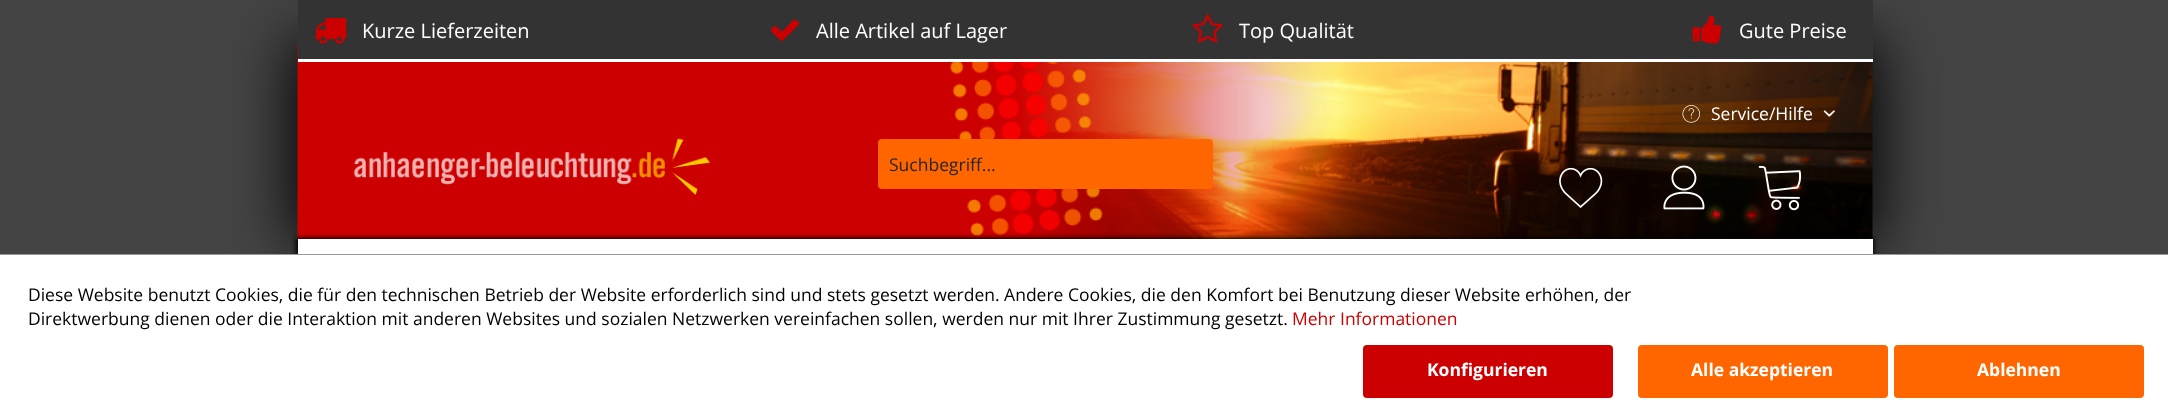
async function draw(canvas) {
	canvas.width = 2168;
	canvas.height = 409;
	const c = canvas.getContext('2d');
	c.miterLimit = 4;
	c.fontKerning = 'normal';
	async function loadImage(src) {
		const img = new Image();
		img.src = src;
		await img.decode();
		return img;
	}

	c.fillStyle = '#444';
	c.fillRect(0, 0, 2168, 409);
	c.fillStyle = '#000';
	c.filter = 'blur(31px)';
	c.beginPath();
	c.rect(293, 39, 1585, 205);
	c.fill();
	c.filter = 'none';
	c.drawImage(await loadImage('img1.png'), 297, 43, 1576, 196);
	c.fillStyle = '#333';
	c.fillRect(298, 0, 1575, 59);
	c.fillStyle = '#fff';
	c.fillRect(298, 59, 1575, 3);
	c.drawImage(await loadImage('img2.png'), 314, 18, 33, 26);
	c.font = '20px Open Sans';
	c.fillText('Kurze Lieferzeiten', 362, 38);
	c.drawImage(await loadImage('img3.png'), 771, 19, 28, 22);
	c.fillText('Alle Artikel auf Lager', 816, 38);
	c.drawImage(await loadImage('img4.png'), 1192, 14, 31, 29);
	c.fillText('Top Qualität', 1239, 38);
	c.drawImage(await loadImage('img5.png'), 1692, 15, 30, 29);
	c.fillText('Gute Preise', 1739, 38);
	c.drawImage(await loadImage('img6.png'), 1682, 105, 18, 18);
	c.font = '17.5px Open Sans';
	c.fillText('Service/Hilfe', 1711, 120);
	c.drawImage(await loadImage('img7.png'), 1823, 110, 12, 7);
	c.drawImage(await loadImage('img8.png'), 353, 138, 357, 57);
	c.fillStyle = '#f60';
	c.beginPath();
	c.roundRect(878, 139, 335, 50, 4);
	c.fill();
	c.fillStyle = '#262626';
	c.fillText('Suchbegriff...', 889, 171);
	c.drawImage(await loadImage('img9.png'), 1559, 167, 44, 41);
	c.drawImage(await loadImage('img10.png'), 1663, 165, 42, 45);
	c.drawImage(await loadImage('img11.png'), 1758, 165, 44, 46);
	c.fillStyle = '#000';
	c.filter = 'blur(2.5px)';
	c.beginPath();
	c.rect(296, 238, 1578, 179);
	c.fill();
	c.filter = 'none';
	for (const [x, y, w, h, color] of [
		[298, 239, 1575, 15, '#fff'],
		[0, 255, 2168, 154, '#fff'],
		[0, 254, 2168, 1, '#999'],
	]) {
		c.fillStyle = color;
		c.fillRect(x, y, w, h);
	}
	c.fillStyle = '#000';
	c.fillText('Diese Website benutzt Cookies, die für den technischen Betrieb der Website erforderlich sind und stets gesetzt werden. Andere Cookies, die den Komfort bei Benutzung dieser Website erhöhen, der', 28, 301);
	c.fillText('Direktwerbung dienen oder die Interaktion mit anderen Websites und sozialen Netzwerken vereinfachen sollen, werden nur mit Ihrer Zustimmung gesetzt.', 28, 325);
	c.fillStyle = '#c00';
	c.fillText('Mehr Informationen', 1292, 325);
	c.beginPath();
	c.roundRect(1363, 345, 250, 53, 4);
	c.fill();
	c.font = 'bold 17.5px Open Sans';
	c.fillStyle = '#fff';
	c.fillText('Konfigurieren', 1427, 376);
	c.fillStyle = '#f60';
	c.beginPath();
	c.roundRect(1638, 345, 250, 53, 4);
	c.fill();
	c.fillStyle = '#fff';
	c.fillText('Alle akzeptieren', 1691, 376);
	c.fillStyle = '#f60';
	c.beginPath();
	c.roundRect(1894, 345, 250, 53, 4);
	c.fill();
	c.fillStyle = '#fff';
	c.fillText('Ablehnen', 1977, 376);
}

draw(document.querySelector('canvas'));
